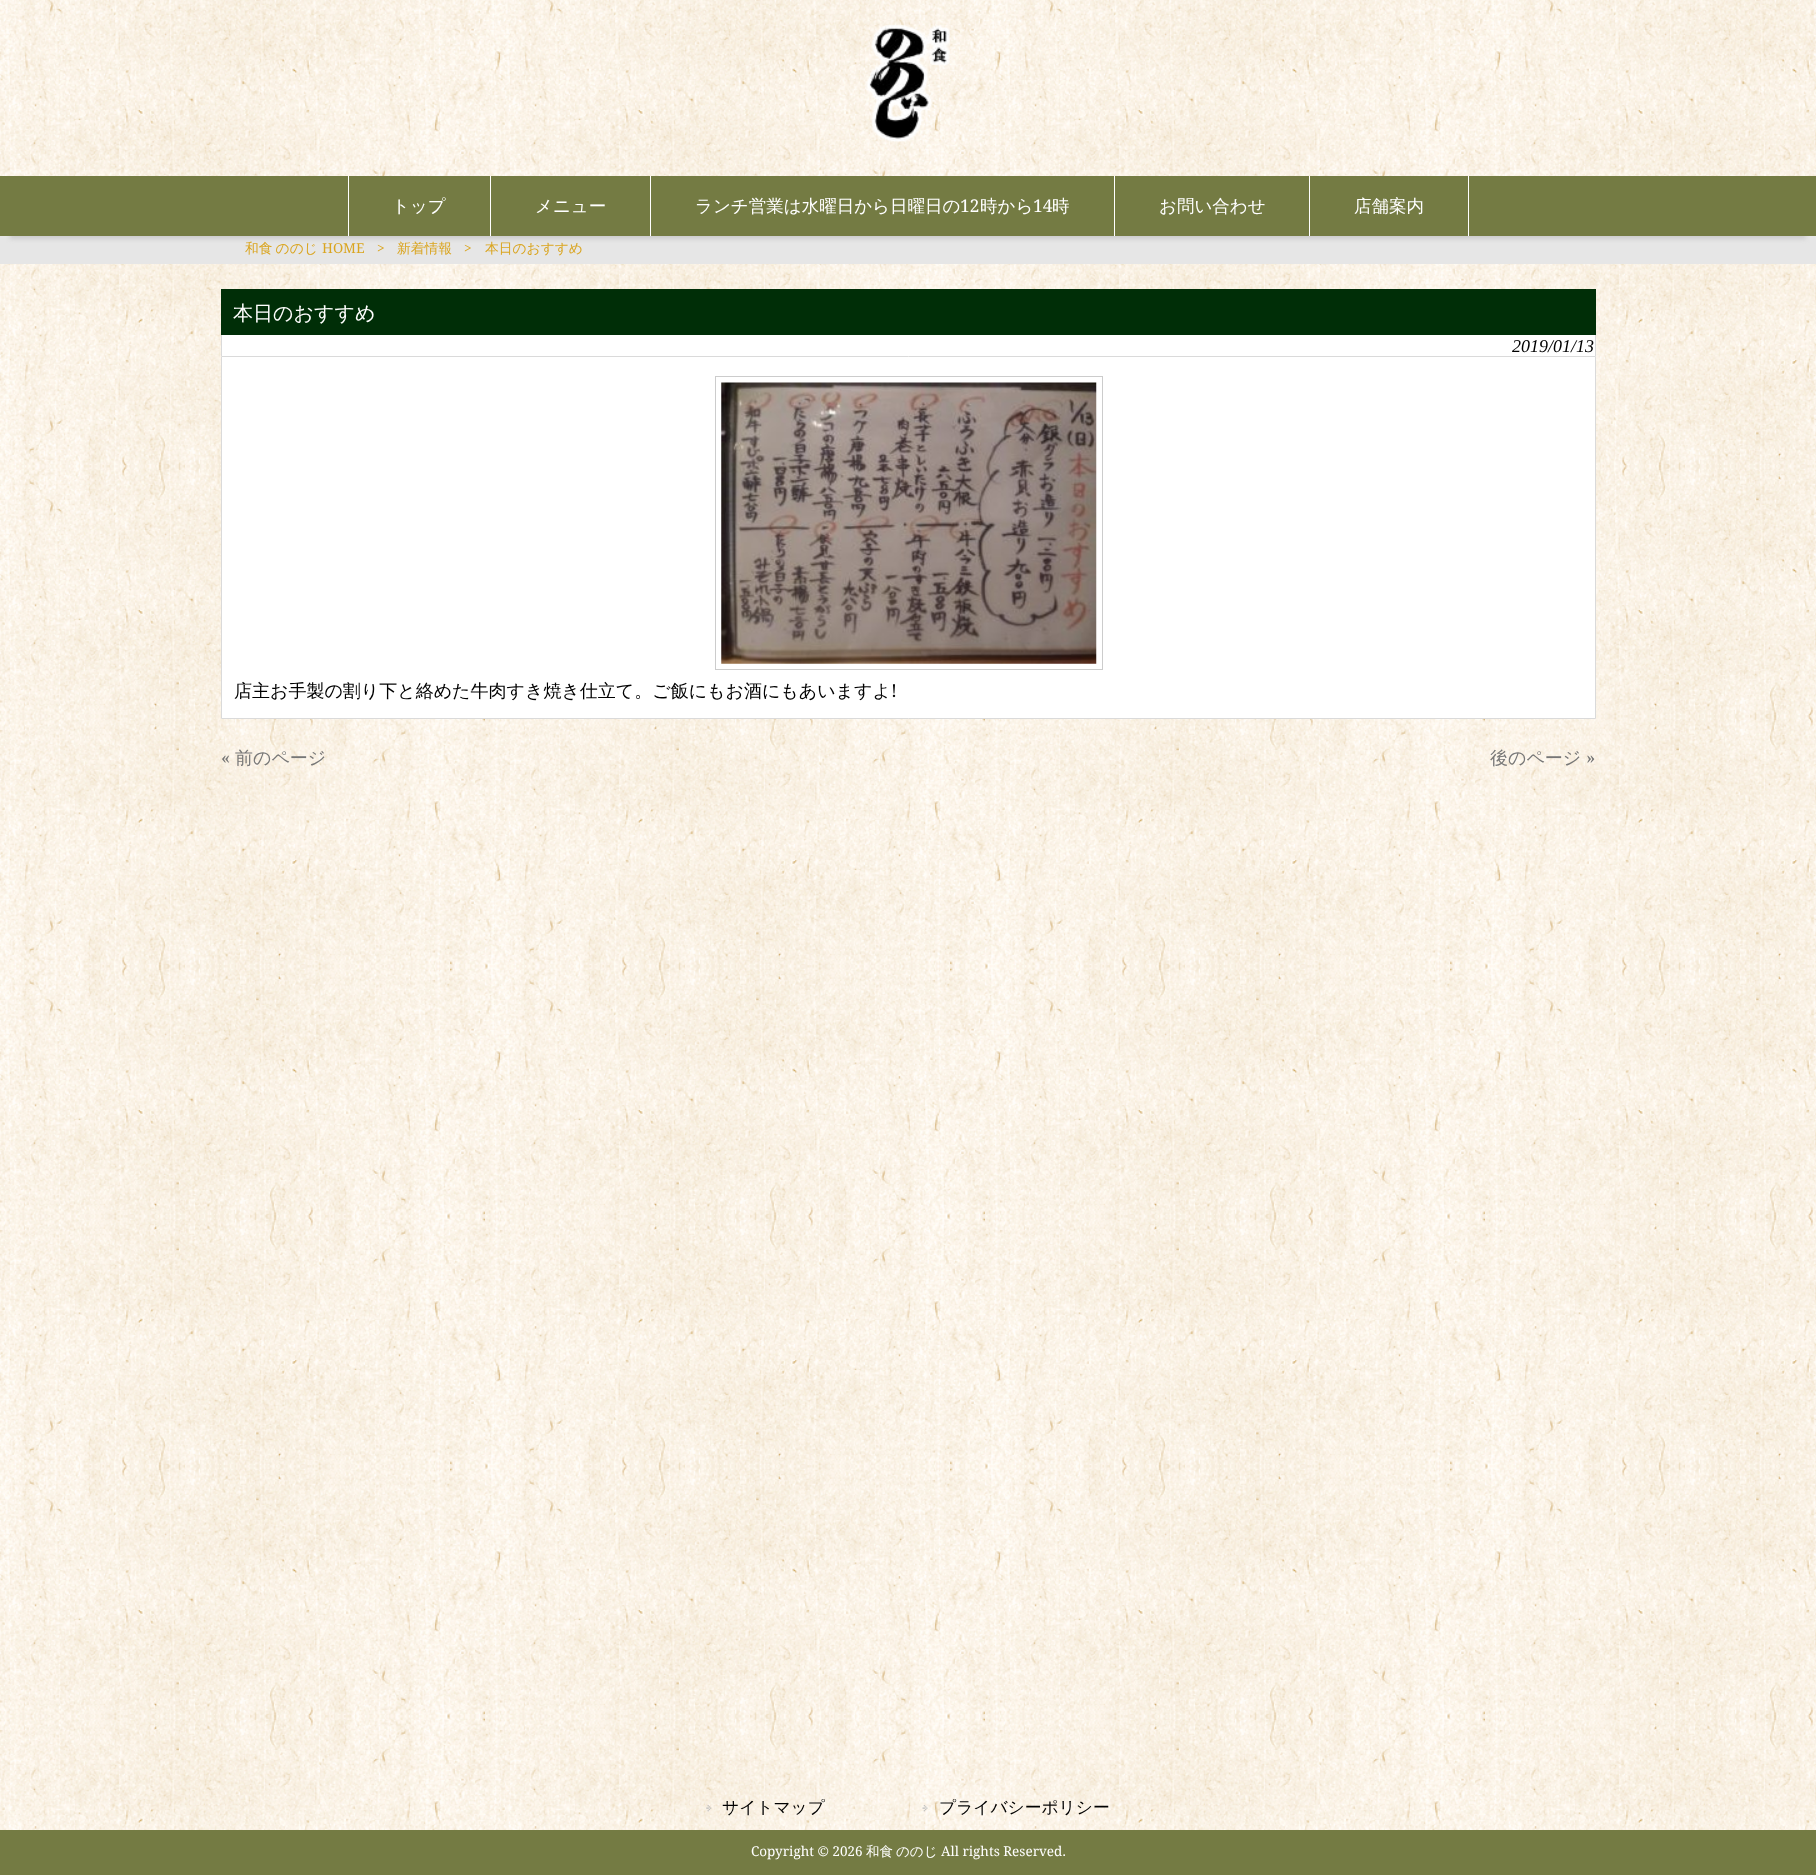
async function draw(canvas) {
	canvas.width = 1816;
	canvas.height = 1875;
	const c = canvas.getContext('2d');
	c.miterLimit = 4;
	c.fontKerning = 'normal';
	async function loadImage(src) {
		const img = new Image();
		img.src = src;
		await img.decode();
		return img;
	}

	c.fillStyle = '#fff';
	c.fillRect(0, 0, 1816, 1875);
	c.drawImage(await loadImage('img1.png'), 0, 0, 1816, 1830);
	c.drawImage(await loadImage('img2.png'), 866, 25, 84, 117);
	c.fillStyle = '#e6e6e6';
	c.fillRect(0, 236, 1816, 28);
	c.fillStyle = '#ccc';
	c.filter = 'blur(2px)';
	c.beginPath();
	c.rect(10, 199, 1796, 40);
	c.fill();
	c.filter = 'none';
	for (const [x, y, w, h, color] of [
		[0, 176, 1816, 60, '#747b43'],
		[490, 176, 1, 60, '#fff'],
		[348, 176, 1, 60, '#fff'],
	]) {
		c.fillStyle = color;
		c.fillRect(x, y, w, h);
	}
	c.font = '500 17.5px WenQuanYi Zen Hei';
	c.fillText('トップ', 392, 212);
	c.fillRect(650, 176, 1, 60);
	c.fillText('メニュー', 535, 212);
	c.fillRect(1114, 176, 1, 60);
	c.fillText('ランチ営業は水曜日から日曜日の', 695, 212);
	c.font = '17.5px Droid Serif';
	c.fillText('12', 960, 212);
	c.font = '500 17.5px WenQuanYi Zen Hei';
	c.fillText('時から', 980, 212);
	c.font = '17.5px Droid Serif';
	c.fillText('14', 1033, 212);
	c.font = '500 17.5px WenQuanYi Zen Hei';
	c.fillText('時', 1052, 212);
	c.fillRect(1309, 176, 1, 60);
	c.fillText('お問い合わせ', 1159, 212);
	c.fillRect(1468, 176, 1, 60);
	c.fillText('店舗案内', 1354, 212);
	c.wordSpacing = '-1px';
	c.font = '500 13.75px WenQuanYi Zen Hei';
	c.fillStyle = '#daa520';
	c.fillText('和食 ののじ', 245, 253);
	c.wordSpacing = '0px';
	c.font = '13.75px Droid Serif';
	c.fillText('HOME', 322, 253);
	c.fillText('>', 377, 253);
	c.font = '500 13.75px WenQuanYi Zen Hei';
	c.fillText('新着情報', 397, 253);
	c.font = '13.75px Droid Serif';
	c.fillText('>', 464, 253);
	c.font = '500 13.75px WenQuanYi Zen Hei';
	c.fillText('本日のおすすめ', 485, 253);
	c.fillStyle = '#002e07';
	c.fillRect(221, 289, 1375, 46);
	c.font = '500 20px WenQuanYi Zen Hei';
	c.fillStyle = '#fff';
	c.fillText('本日のおすすめ', 233, 320);
	for (const [x, y, w, h, color] of [
		[222, 335, 1373, 21, '#fff'],
		[1595, 335, 1, 21, '#dadada'],
		[221, 335, 1, 21, '#dadada'],
	]) {
		c.fillStyle = color;
		c.fillRect(x, y, w, h);
	}
	c.font = 'italic 18px Liberation Serif';
	c.fillStyle = '#000';
	c.fillText('2019/01/13', 1512, 352);
	c.fillStyle = '#fff';
	c.beginPath();
	c.rect(221.5, 356.5, 1374, 362);
	c.fill();
	c.strokeStyle = '#dadada';
	c.stroke();
	c.strokeStyle = '#ccc';
	c.strokeRect(715.5, 376.5, 387, 293);
	c.drawImage(await loadImage('img3.png'), 721, 382, 376, 282);
	c.font = '500 18px WenQuanYi Zen Hei';
	c.fillStyle = '#000';
	c.fillText('店主お手製の割り下と絡めた牛肉すき焼き仕立て。ご飯にもお酒にもあいますよ', 234, 697);
	c.font = '18px Droid Serif';
	c.fillText('!', 891, 697);
	c.fillStyle = '#777';
	c.fillText('«', 221, 764);
	c.font = '500 18px WenQuanYi Zen Hei';
	c.fillText('前のページ', 235, 764);
	c.fillText('後のページ', 1490, 764);
	c.font = '18px Droid Serif';
	c.fillText('»', 1586, 764);
	c.drawImage(await loadImage('img4.png'), 706, 1805, 6, 7);
	c.font = '500 16.75px WenQuanYi Zen Hei';
	c.fillStyle = '#000';
	c.fillText('サイトマップ', 722, 1813);
	c.drawImage(await loadImage('img5.png'), 922, 1805, 6, 7);
	c.fillText('プライバシーポリシー', 939, 1813);
	c.fillStyle = '#747b43';
	c.fillRect(0, 1830, 1816, 45);
	c.font = '13.5px Droid Serif';
	c.fillStyle = '#fff';
	c.fillText('Copyright © 2026', 751, 1856);
	c.font = '500 13.5px WenQuanYi Zen Hei';
	c.fillText('和食', 866, 1856);
	c.fillText('ののじ', 896, 1856);
	c.font = '13.5px Droid Serif';
	c.fillText('All rights Reserved.', 941, 1856);
}

draw(document.querySelector('canvas'));
